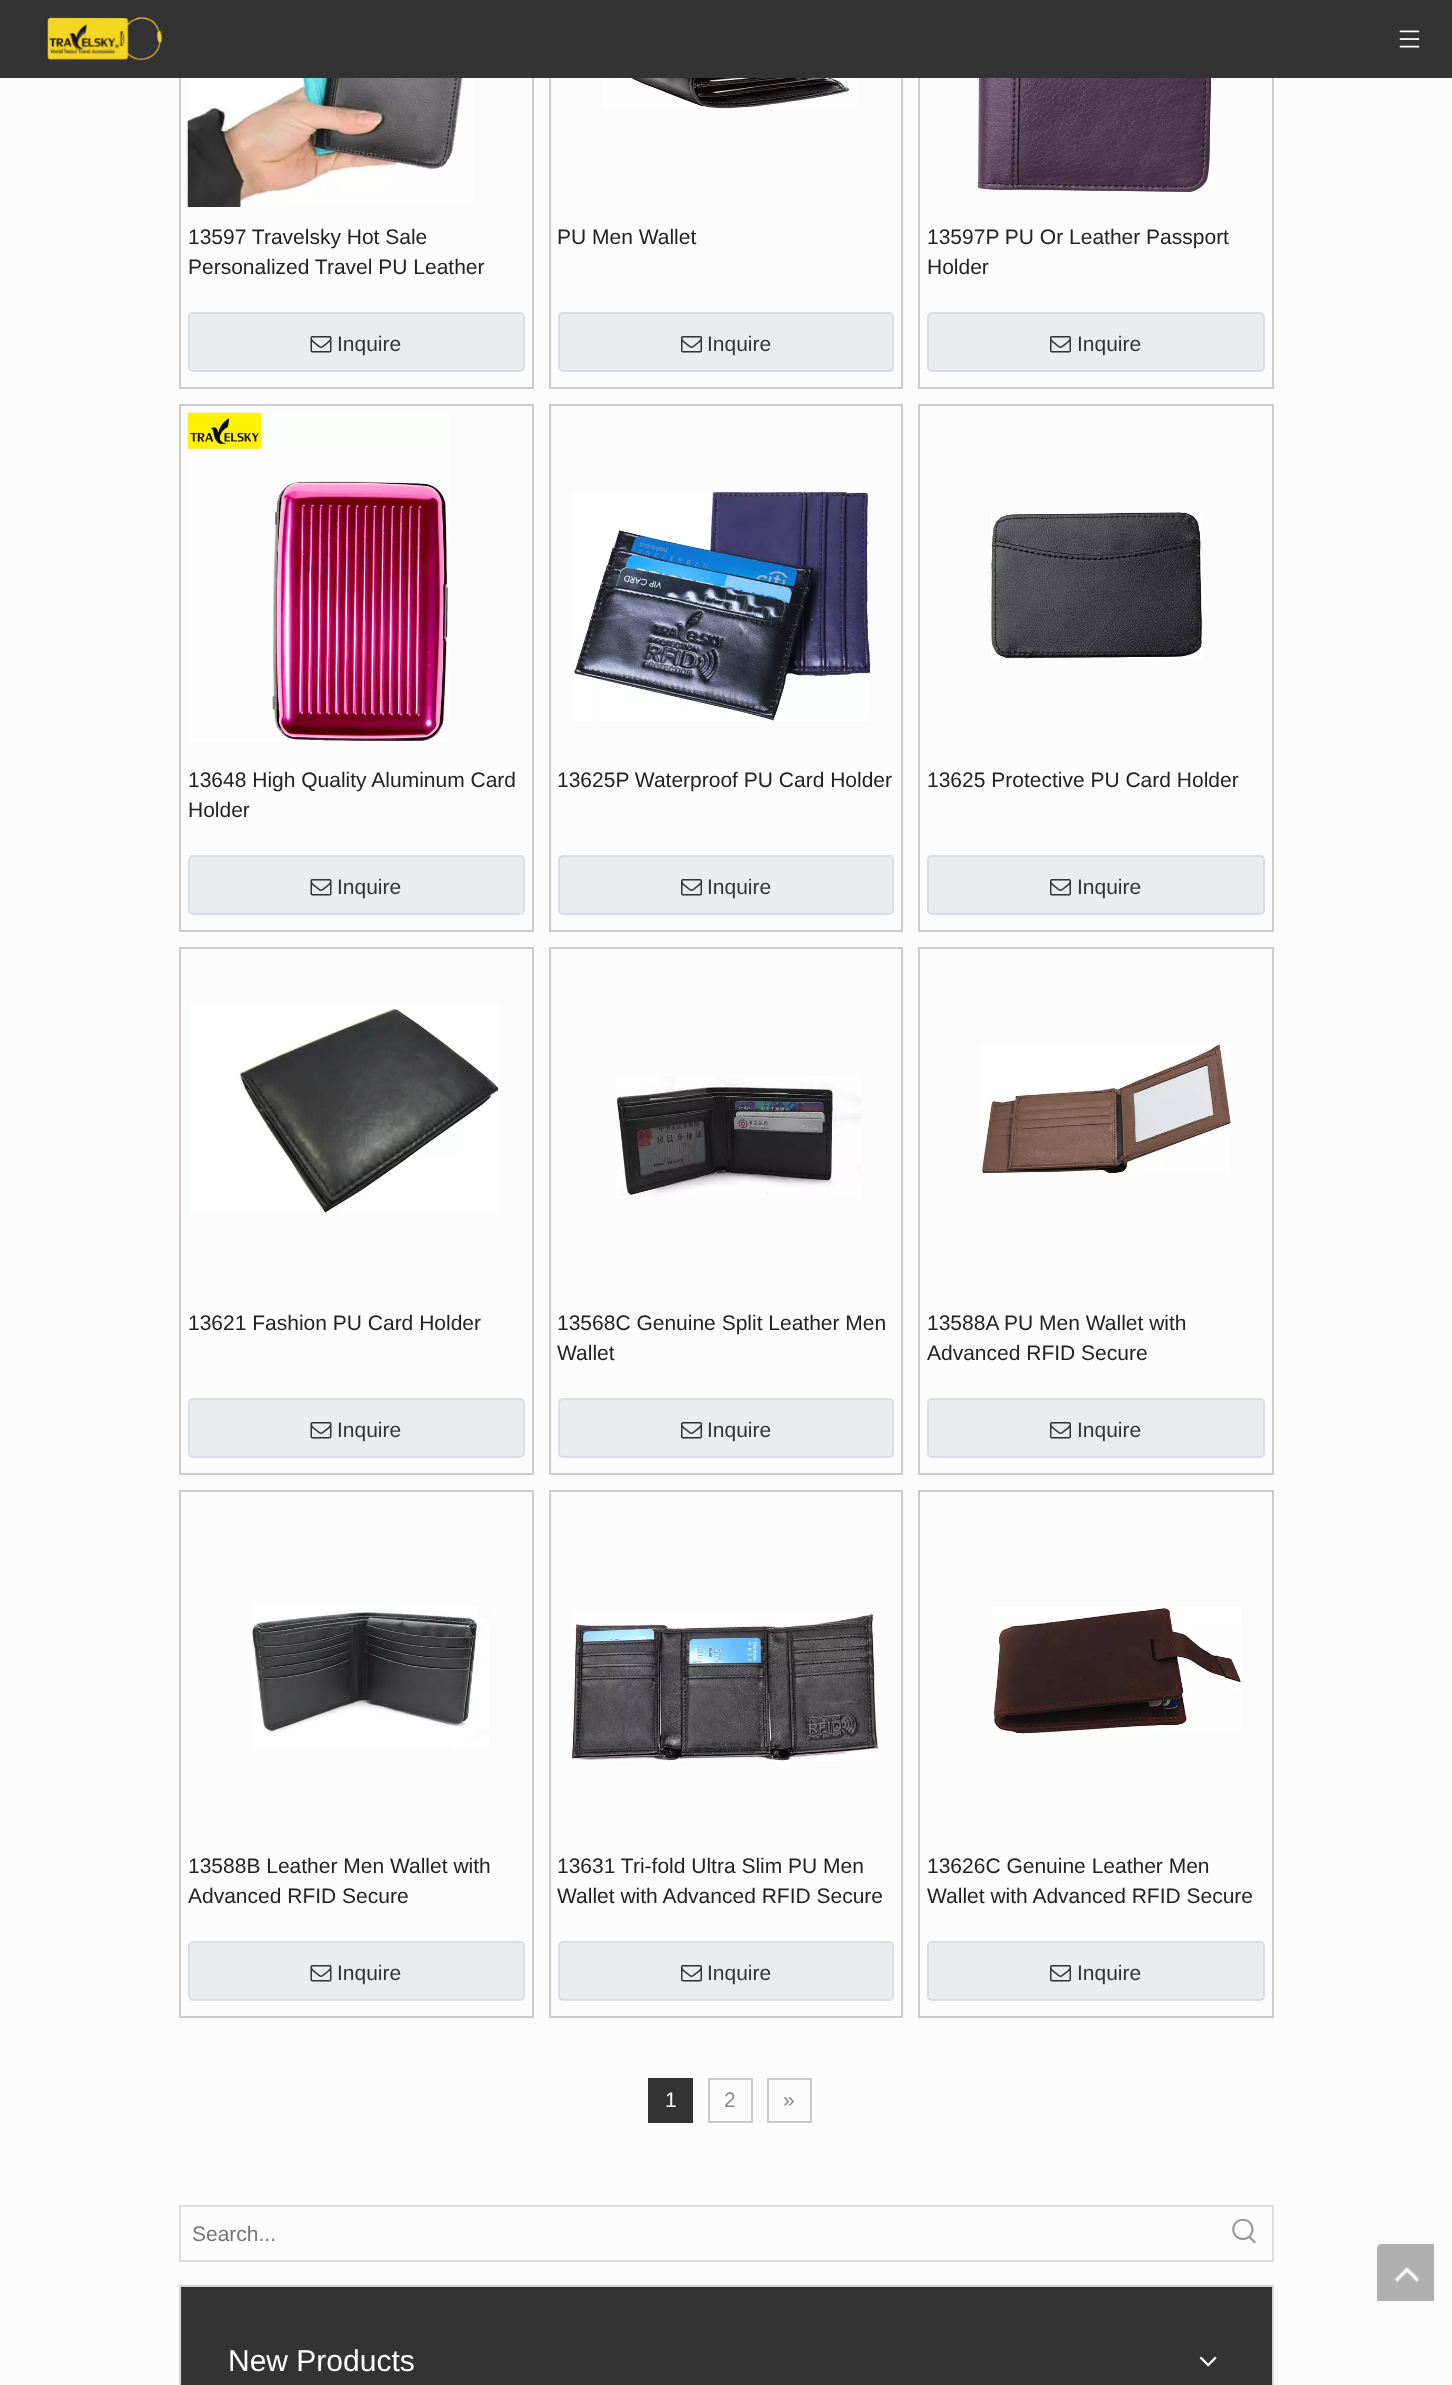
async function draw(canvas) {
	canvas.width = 1452;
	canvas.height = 2385;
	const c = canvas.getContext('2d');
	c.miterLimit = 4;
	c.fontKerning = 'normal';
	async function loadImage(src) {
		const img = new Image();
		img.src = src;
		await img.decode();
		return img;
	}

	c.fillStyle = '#fcfcfc';
	c.fillRect(0, 0, 1452, 2385);
	c.strokeStyle = '#ccc';
	c.lineWidth = 2;
	c.strokeRect(180, -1, 353, 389);
	c.strokeRect(550, -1, 352, 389);
	c.strokeRect(919, -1, 354, 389);
	c.fillStyle = '#333';
	c.fillRect(0, 0, 1452, 78);
	c.drawImage(await loadImage('img1.png'), 47, 17, 116, 44);
	c.drawImage(await loadImage('img2.png'), 1399, 30, 21, 18);
	c.drawImage(await loadImage('img3.png'), 187, 78, 286, 129);
	c.font = '21px Liberation Sans';
	c.fillStyle = '#222';
	c.fillText('13597 Travelsky Hot Sale', 188, 244);
	c.fillText('Personalized Travel PU Leather', 188, 274);
	c.fillStyle = '#eaedef';
	c.beginPath();
	c.roundRect(189, 313, 335, 58, 4);
	c.fill();
	c.strokeStyle = '#d8dde6';
	c.stroke();
	c.drawImage(await loadImage('img4.png'), 310, 336, 22, 17);
	c.fillStyle = '#333';
	c.fillText('Inquire', 337, 351);
	c.drawImage(await loadImage('img5.png'), 602, 78, 255, 31);
	c.fillStyle = '#222';
	c.fillText('PU Men Wallet', 557, 244);
	c.fillStyle = '#eaedef';
	c.beginPath();
	c.roundRect(559, 313, 334, 58, 4);
	c.fill();
	c.stroke();
	c.drawImage(await loadImage('img6.png'), 681, 336, 21, 17);
	c.fillStyle = '#333';
	c.fillText('Inquire', 707, 351);
	c.drawImage(await loadImage('img7.png'), 977, 78, 237, 114);
	c.fillStyle = '#222';
	c.fillText('13597P PU Or Leather Passport', 927, 244);
	c.fillText('Holder', 927, 274);
	c.fillStyle = '#eaedef';
	c.beginPath();
	c.roundRect(928, 313, 336, 58, 4);
	c.fill();
	c.stroke();
	c.drawImage(await loadImage('img6.png'), 1050, 336, 21, 17);
	c.fillStyle = '#333';
	c.fillText('Inquire', 1077, 351);
	c.strokeStyle = '#ccc';
	c.strokeRect(180, 405, 353, 526);
	c.drawImage(await loadImage('img8.png'), 187, 412, 262, 330);
	c.fillStyle = '#222';
	c.fillText('13648 High Quality Aluminum Card', 188, 787);
	c.fillText('Holder', 188, 817);
	c.fillStyle = '#eaedef';
	c.beginPath();
	c.roundRect(189, 856, 335, 58, 4);
	c.fill();
	c.strokeStyle = '#d8dde6';
	c.stroke();
	c.drawImage(await loadImage('img4.png'), 310, 879, 22, 17);
	c.fillStyle = '#333';
	c.fillText('Inquire', 337, 894);
	c.strokeStyle = '#ccc';
	c.strokeRect(550, 405, 352, 526);
	c.drawImage(await loadImage('img9.png'), 574, 491, 296, 230);
	c.fillStyle = '#222';
	c.fillText('13625P Waterproof PU Card Holder', 557, 787);
	c.fillStyle = '#eaedef';
	c.beginPath();
	c.roundRect(559, 856, 334, 58, 4);
	c.fill();
	c.strokeStyle = '#d8dde6';
	c.stroke();
	c.drawImage(await loadImage('img6.png'), 681, 879, 21, 17);
	c.fillStyle = '#333';
	c.fillText('Inquire', 707, 894);
	c.strokeStyle = '#ccc';
	c.strokeRect(919, 405, 354, 526);
	c.drawImage(await loadImage('img10.png'), 991, 512, 212, 147);
	c.fillStyle = '#222';
	c.fillText('13625 Protective PU Card Holder', 927, 787);
	c.fillStyle = '#eaedef';
	c.beginPath();
	c.roundRect(928, 856, 336, 58, 4);
	c.fill();
	c.strokeStyle = '#d8dde6';
	c.stroke();
	c.drawImage(await loadImage('img6.png'), 1050, 879, 21, 17);
	c.fillStyle = '#333';
	c.fillText('Inquire', 1077, 894);
	c.strokeStyle = '#ccc';
	c.strokeRect(180, 948, 353, 526);
	c.drawImage(await loadImage('img11.png'), 187, 1004, 312, 211);
	c.fillStyle = '#222';
	c.fillText('13621 Fashion PU Card Holder', 188, 1330);
	c.fillStyle = '#eaedef';
	c.beginPath();
	c.roundRect(189, 1399, 335, 58, 4);
	c.fill();
	c.strokeStyle = '#d8dde6';
	c.stroke();
	c.drawImage(await loadImage('img4.png'), 310, 1422, 22, 17);
	c.fillStyle = '#333';
	c.fillText('Inquire', 337, 1437);
	c.strokeStyle = '#ccc';
	c.strokeRect(550, 948, 352, 526);
	c.drawImage(await loadImage('img12.png'), 616, 1076, 246, 123);
	c.fillStyle = '#222';
	c.fillText('13568C Genuine Split Leather Men', 557, 1330);
	c.fillText('Wallet', 557, 1360);
	c.fillStyle = '#eaedef';
	c.beginPath();
	c.roundRect(559, 1399, 334, 58, 4);
	c.fill();
	c.strokeStyle = '#d8dde6';
	c.stroke();
	c.drawImage(await loadImage('img6.png'), 681, 1422, 21, 17);
	c.fillStyle = '#333';
	c.fillText('Inquire', 707, 1437);
	c.strokeStyle = '#ccc';
	c.strokeRect(919, 948, 354, 526);
	c.drawImage(await loadImage('img13.png'), 982, 1044, 249, 131);
	c.fillStyle = '#222';
	c.fillText('13588A PU Men Wallet with', 927, 1330);
	c.fillText('Advanced RFID Secure', 927, 1360);
	c.fillStyle = '#eaedef';
	c.beginPath();
	c.roundRect(928, 1399, 336, 58, 4);
	c.fill();
	c.strokeStyle = '#d8dde6';
	c.stroke();
	c.drawImage(await loadImage('img6.png'), 1050, 1422, 21, 17);
	c.fillStyle = '#333';
	c.fillText('Inquire', 1077, 1437);
	c.strokeStyle = '#ccc';
	c.strokeRect(180, 1491, 353, 526);
	c.drawImage(await loadImage('img14.png'), 252, 1606, 237, 142);
	c.fillStyle = '#222';
	c.fillText('13588B Leather Men Wallet with', 188, 1873);
	c.fillText('Advanced RFID Secure', 188, 1903);
	c.fillStyle = '#eaedef';
	c.beginPath();
	c.roundRect(189, 1942, 335, 58, 4);
	c.fill();
	c.strokeStyle = '#d8dde6';
	c.stroke();
	c.drawImage(await loadImage('img4.png'), 310, 1965, 22, 17);
	c.fillStyle = '#333';
	c.fillText('Inquire', 337, 1980);
	c.strokeStyle = '#ccc';
	c.strokeRect(550, 1491, 352, 526);
	c.drawImage(await loadImage('img15.png'), 571, 1613, 308, 148);
	c.fillStyle = '#222';
	c.fillText('13631 Tri-fold Ultra Slim PU Men', 557, 1873);
	c.fillText('Wallet with Advanced RFID Secure', 557, 1903);
	c.fillStyle = '#eaedef';
	c.beginPath();
	c.roundRect(559, 1942, 334, 58, 4);
	c.fill();
	c.strokeStyle = '#d8dde6';
	c.stroke();
	c.drawImage(await loadImage('img6.png'), 681, 1965, 21, 17);
	c.fillStyle = '#333';
	c.fillText('Inquire', 707, 1980);
	c.strokeStyle = '#ccc';
	c.strokeRect(919, 1491, 354, 526);
	c.drawImage(await loadImage('img16.png'), 992, 1607, 249, 128);
	c.fillStyle = '#222';
	c.fillText('13626C Genuine Leather Men', 927, 1873);
	c.fillText('Wallet with Advanced RFID Secure', 927, 1903);
	c.fillStyle = '#eaedef';
	c.beginPath();
	c.roundRect(928, 1942, 336, 58, 4);
	c.fill();
	c.strokeStyle = '#d8dde6';
	c.stroke();
	c.drawImage(await loadImage('img6.png'), 1050, 1965, 21, 17);
	c.fillStyle = '#333';
	c.fillText('Inquire', 1077, 1980);
	c.fillRect(648, 2078, 45, 45);
	c.fillStyle = '#fff';
	c.fillText('1', 665, 2107);
	c.strokeStyle = '#c9caca';
	c.strokeRect(709, 2079, 43, 43);
	c.fillStyle = '#898989';
	c.fillText('2', 724, 2107);
	c.strokeRect(768, 2079, 43, 43);
	c.fillText('»', 783, 2107);
	c.strokeStyle = '#ddd';
	c.strokeRect(180, 2206, 1093, 55);
	c.fillStyle = '#757575';
	c.fillText('Search...', 192, 2241);
	c.drawImage(await loadImage('img17.png'), 1232, 2218, 24, 26);
	c.fillStyle = '#333';
	c.beginPath();
	c.rect(180, 2286, 1093, 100);
	c.fill();
	c.strokeStyle = '#d6d6d6';
	c.stroke();
	c.font = '30px Liberation Sans';
	c.fillStyle = '#fff';
	c.fillText('New Products', 228, 2371);
	c.drawImage(await loadImage('img18.png'), 1199, 2356, 18, 11);
	c.drawImage(await loadImage('img19.png'), 1377, 2244, 57, 57);
}

draw(document.querySelector('canvas'));
